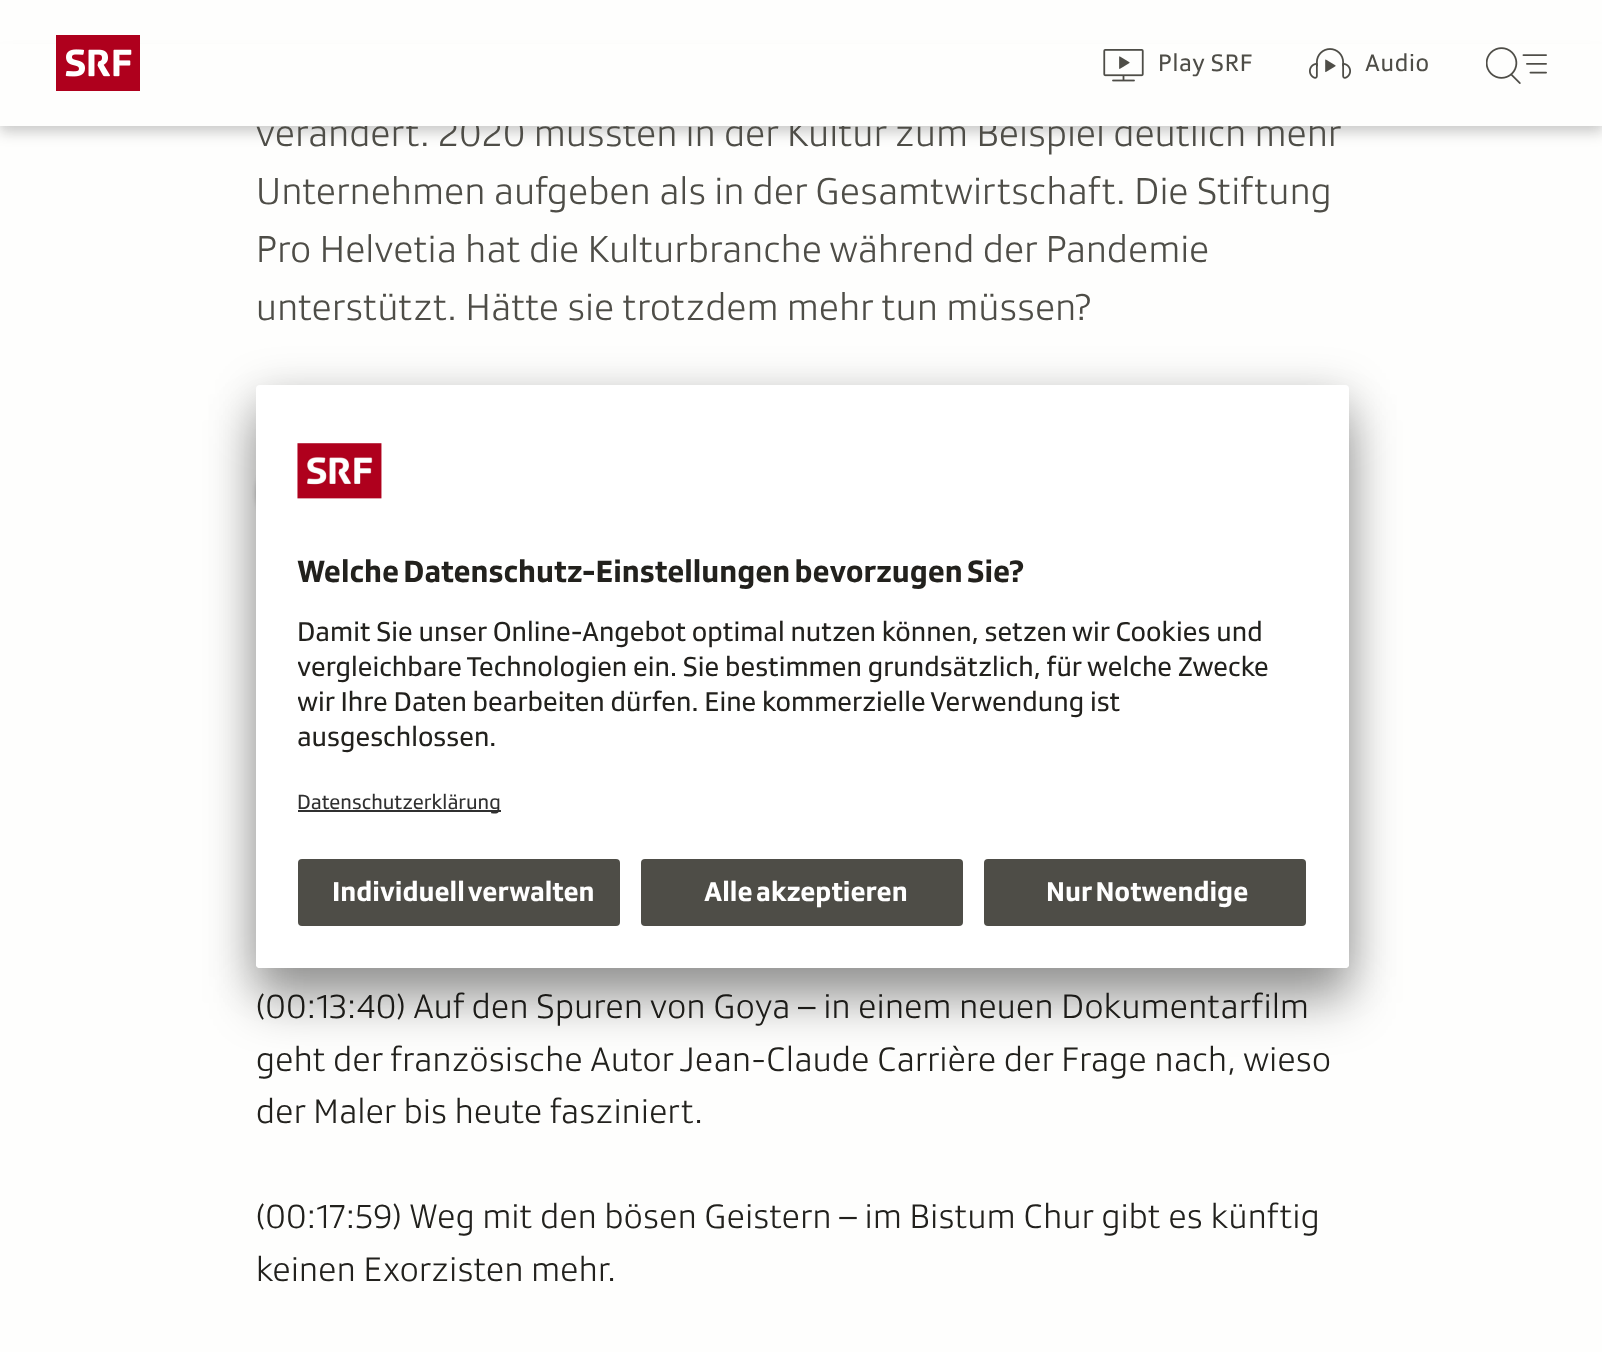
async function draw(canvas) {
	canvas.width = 1602;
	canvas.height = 1352;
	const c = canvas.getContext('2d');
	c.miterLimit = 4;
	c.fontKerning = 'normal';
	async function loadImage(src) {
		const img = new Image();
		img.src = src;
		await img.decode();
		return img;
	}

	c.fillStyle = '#fefefd';
	c.fillRect(0, 0, 1602, 1352);
	c.fillStyle = '#00000014';
	c.filter = 'blur(7px)';
	c.beginPath();
	c.rect(0, 53, 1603, 73);
	c.fill();
	c.filter = 'none';
	c.fillStyle = '#00000029';
	c.filter = 'blur(7px)';
	c.beginPath();
	c.rect(0, 60, 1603, 73);
	c.fill();
	c.filter = 'none';
	c.letterSpacing = '0.35px';
	c.font = '300 38.5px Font';
	c.fillStyle = '#4e4d47';
	c.fillText('verändert. 2020 mussten in der Kultur zum Beispiel deutlich mehr', 256, 146);
	c.fillStyle = '#fefefd';
	c.fillRect(0, 44, 1602, 82);
	c.drawImage(await loadImage('img1.png'), 56, 35, 84, 56);
	c.drawImage(await loadImage('img2.png'), 1103, 49, 41, 33);
	c.letterSpacing = '0.75px';
	c.font = '24.5px Font';
	c.fillStyle = '#4e4d47';
	c.fillText('Play SRF', 1158, 71);
	c.drawImage(await loadImage('img3.png'), 1309, 48, 42, 31);
	c.fillText('Audio', 1365, 71);
	c.drawImage(await loadImage('img4.png'), 1486, 47, 61, 37);
	c.letterSpacing = '0.35px';
	c.font = '300 38.5px Font';
	for (const [text, x, y] of [
		['Unternehmen aufgeben als in der Gesamtwirtschaft. Die Stiftung', 256, 204],
		['Pro Helvetia hat die Kulturbranche während der Pandemie', 256, 262],
		['unterstützt. Hätte sie trotzdem mehr tun müssen?', 256, 320],
	]) {
		c.fillText(text, x, y);
	}
	c.fillStyle = '#00000014';
	c.filter = 'blur(2px)';
	c.beginPath();
	c.roundRect(256, 450, 318, 84, 42);
	c.fill();
	c.filter = 'none';
	c.fillStyle = '#00000029';
	c.filter = 'blur(2px)';
	c.beginPath();
	c.roundRect(256, 452, 318, 84, 42);
	c.fill();
	c.filter = 'none';
	c.font = '300 35px Font';
	c.fillStyle = '#22211d';
	for (const [text, x, y] of [
		['(00:13:40) Auf den Spuren von Goya – in einem neuen Dokumentarfilm', 256, 1018],
		['geht der französische Autor Jean-Claude Carrière der Frage nach, wieso', 256, 1071],
		['der Maler bis heute fasziniert.', 256, 1123],
		['(00:17:59) Weg mit den bösen Geistern – im Bistum Chur gibt es künftig', 256, 1228],
		['keinen Exorzisten mehr.', 256, 1281],
	]) {
		c.fillText(text, x, y);
	}
	c.fillStyle = '#0000004d';
	c.filter = 'blur(24.5px)';
	c.beginPath();
	c.roundRect(256, 420, 1093, 583, 4);
	c.fill();
	c.filter = 'none';
	c.fillStyle = '#00000038';
	c.filter = 'blur(23px)';
	c.beginPath();
	c.roundRect(256, 394, 1093, 583, 4);
	c.fill();
	c.filter = 'none';
	c.fillStyle = '#fff';
	c.beginPath();
	c.roundRect(256, 385, 1093, 583, 4);
	c.fill();
	c.drawImage(await loadImage('img5.png'), 297, 443, 85, 56);
	c.letterSpacing = '0px';
	c.wordSpacing = '-2px';
	c.font = 'bold 31.5px Font';
	c.fillStyle = '#22211d';
	c.fillText('Welche Datenschutz-Einstellungen bevorzugen Sie?', 297, 582);
	c.wordSpacing = '0px';
	c.font = '28px Font';
	c.fillText('Damit Sie unser Online-Angebot optimal nutzen können, setzen wir Cookies und', 297, 641);
	c.save();
	c.beginPath();
	c.rect(298, 607, 1009, 154);
	c.clip();
	c.fillText('vergleichbare Technologien ein. Sie bestimmen grundsätzlich, für welche Zwecke', 297, 676);
	c.fillText('wir Ihre Daten bearbeiten dürfen. Eine kommerzielle Verwendung ist', 297, 711);
	c.restore();
	c.fillText('ausgeschlossen.', 297, 746);
	c.fillStyle = '#303030';
	c.fillRect(298, 810, 203, 2);
	c.font = '21px Font';
	c.fillText('Datenschutzerklärung', 297, 809);
	c.fillStyle = '#fff';
	c.beginPath();
	c.roundRect(256, 845, 1093, 123, [0, 0, 4, 4]);
	c.fill();
	c.fillStyle = '#4e4d47';
	c.beginPath();
	c.roundRect(298, 859, 322, 67, 4);
	c.fill();
	c.wordSpacing = '-2px';
	c.font = 'bold 28px Font';
	c.fillStyle = '#fff';
	c.fillText('Individuell verwalten', 332, 901);
	c.fillStyle = '#4e4d47';
	c.beginPath();
	c.roundRect(641, 859, 322, 67, 4);
	c.fill();
	c.fillStyle = '#fff';
	c.fillText('Alle akzeptieren', 704, 901);
	c.fillStyle = '#4e4d47';
	c.beginPath();
	c.roundRect(984, 859, 322, 67, 4);
	c.fill();
	c.fillStyle = '#fff';
	c.fillText('Nur Notwendige', 1046, 901);
}

draw(document.querySelector('canvas'));
